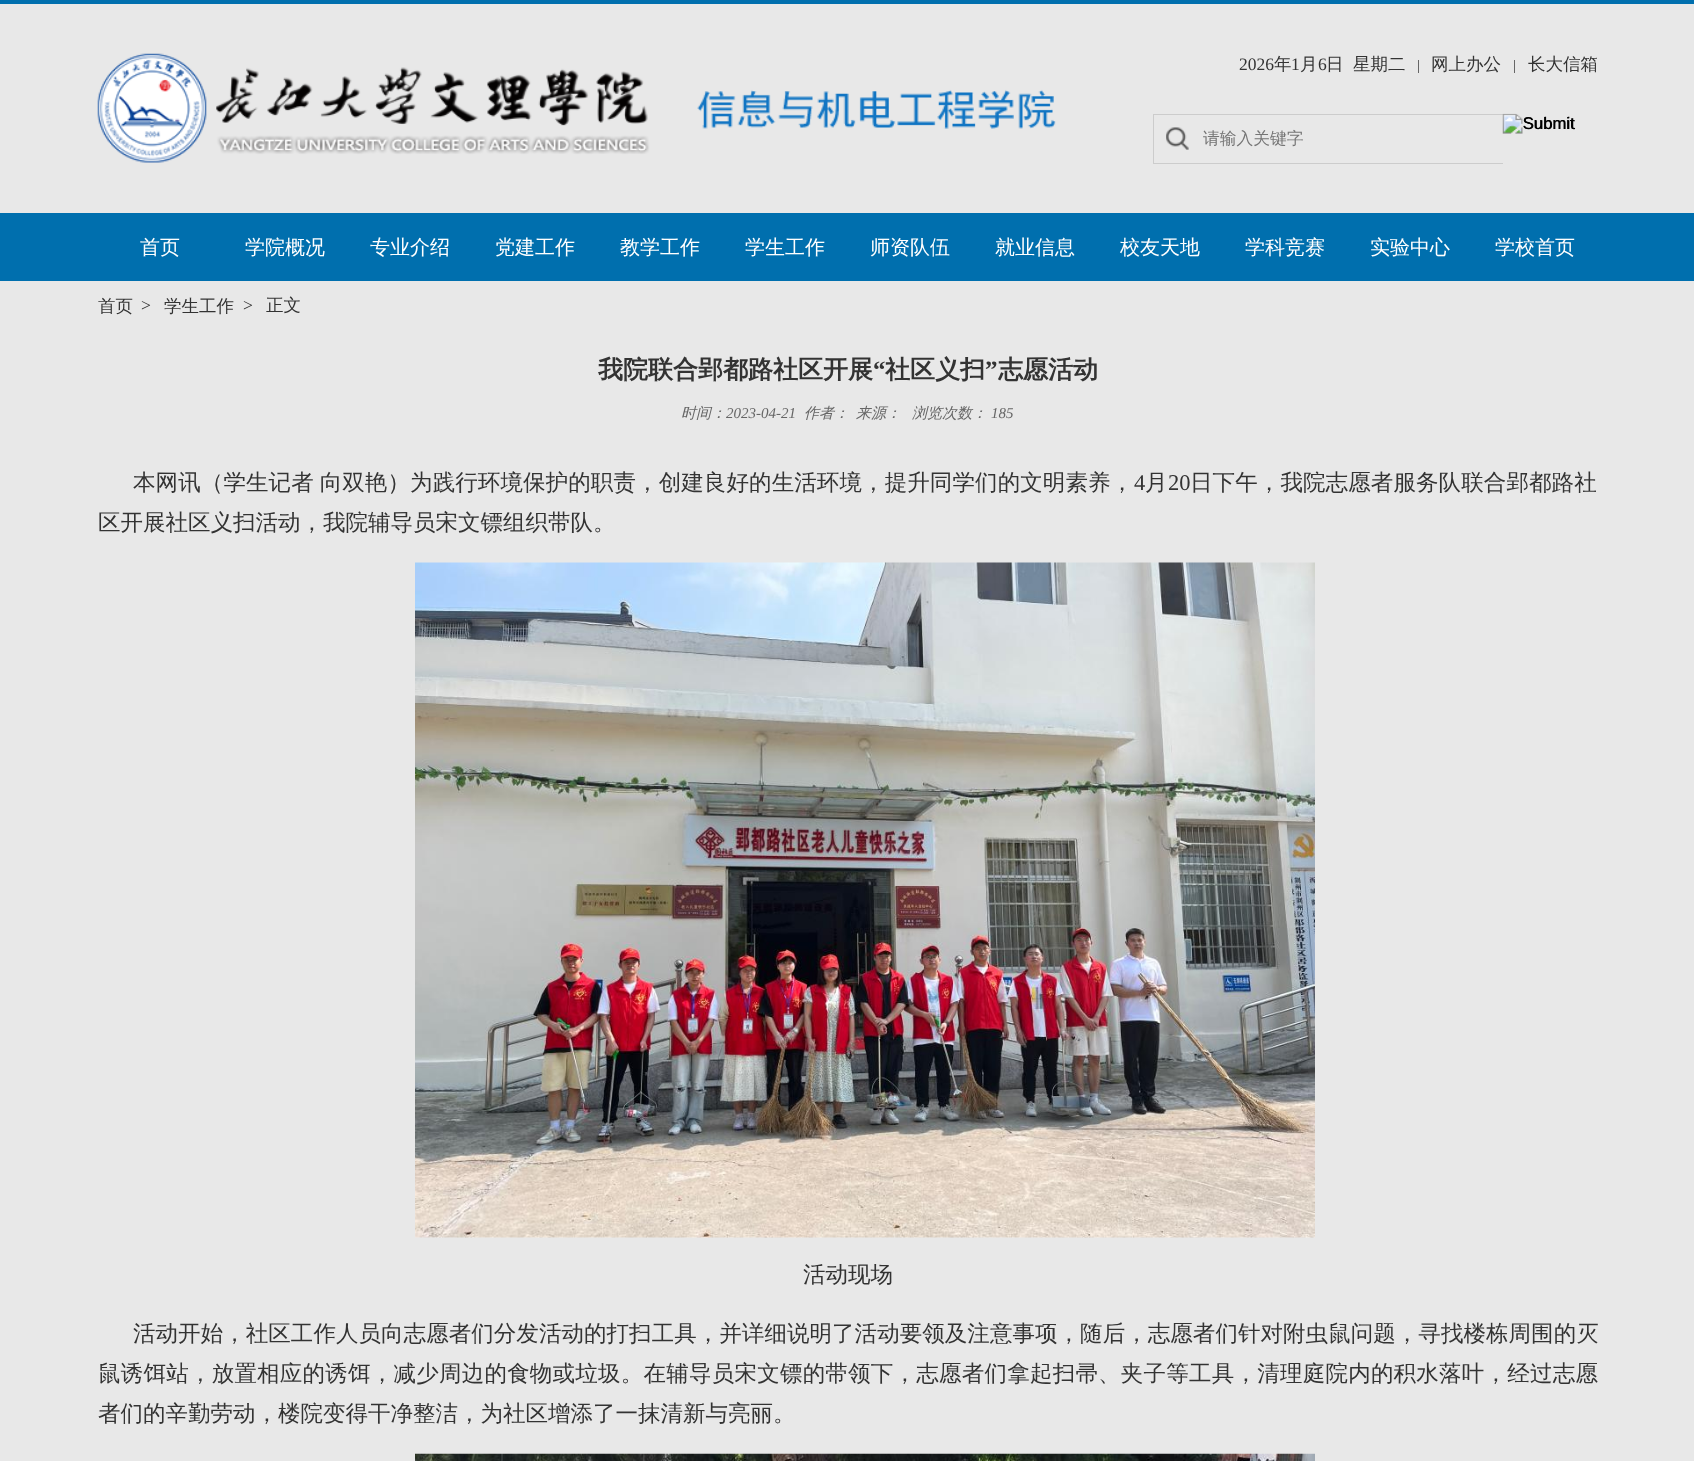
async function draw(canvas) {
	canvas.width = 1694;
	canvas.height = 1461;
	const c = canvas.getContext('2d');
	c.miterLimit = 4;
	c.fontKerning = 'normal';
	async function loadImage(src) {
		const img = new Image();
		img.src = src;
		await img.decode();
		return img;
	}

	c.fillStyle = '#e8e8e8';
	c.fillRect(0, 0, 1694, 1461);
	c.fillStyle = '#006fae';
	c.fillRect(0, 0, 1694, 4);
	c.drawImage(await loadImage('img1.png'), 97, 53, 959, 110);
	c.font = '17.5px Liberation Serif';
	c.fillStyle = '#333';
	c.fillText('2026', 1239, 70);
	c.font = '500 17.5px WenQuanYi Zen Hei';
	c.fillText('年', 1274, 70);
	c.font = '17.5px Liberation Serif';
	c.fillText('1', 1291, 70);
	c.font = '500 17.5px WenQuanYi Zen Hei';
	c.fillText('月', 1300, 70);
	c.font = '17.5px Liberation Serif';
	c.fillText('6', 1318, 70);
	c.font = '500 17.5px WenQuanYi Zen Hei';
	c.fillText('日', 1326, 70);
	c.fillText('星期二', 1353, 70);
	c.fillStyle = '#666';
	c.fillRect(1418, 60, 1, 13);
	c.fillStyle = '#333';
	c.fillText('网上办公', 1431, 70);
	c.fillStyle = '#666';
	c.fillRect(1514, 60, 1, 13);
	c.fillStyle = '#333';
	c.fillText('长大信箱', 1528, 70);
	c.fillStyle = '#ccc';
	c.fillRect(1153, 114, 350, 1);
	c.drawImage(await loadImage('img2.png'), 1502, 113, 72, 21);
	c.font = '16.75px Liberation Sans';
	c.fillStyle = '#000';
	c.fillText('Submit', 1523, 129);
	c.fillStyle = '#ccc';
	c.fillRect(1153, 163, 350, 1);
	c.fillRect(1153, 114, 1, 50);
	c.drawImage(await loadImage('img3.png'), 1166, 127, 23, 23);
	c.font = '500 16.75px WenQuanYi Zen Hei';
	c.fillStyle = '#757575';
	c.fillText('请输入关键字', 1203, 144);
	c.fillStyle = '#006fae';
	c.fillRect(0, 213, 1694, 68);
	c.font = '500 20px WenQuanYi Zen Hei';
	c.fillStyle = '#fff';
	for (const [text, x, y] of [
		['首页', 140, 254],
		['学院概况', 245, 254],
		['专业介绍', 370, 254],
		['党建工作', 495, 254],
		['教学工作', 620, 254],
		['学生工作', 745, 254],
		['师资队伍', 870, 254],
		['就业信息', 995, 254],
		['校友天地', 1120, 254],
		['学科竞赛', 1245, 254],
		['实验中心', 1370, 254],
		['学校首页', 1495, 254],
	]) {
		c.fillText(text, x, y);
	}
	c.font = '500 17.5px WenQuanYi Zen Hei';
	c.fillStyle = '#333';
	c.fillText('首页', 98, 312);
	c.font = '17.5px Liberation Serif';
	c.fillText('>', 141, 311);
	c.font = '500 17.5px WenQuanYi Zen Hei';
	c.fillText('学生工作', 164, 312);
	c.font = '17.5px Liberation Serif';
	c.fillText('>', 243, 311);
	c.font = '500 17.5px WenQuanYi Zen Hei';
	c.fillText('正文', 266, 311);
	c.font = 'bold 25px WenQuanYi Zen Hei';
	c.fillText('我院联合郢都路社区开展', 598, 378);
	c.font = 'bold 25px Liberation Serif';
	c.fillText('“', 873, 378);
	c.font = 'bold 25px WenQuanYi Zen Hei';
	c.fillText('社区义扫', 885, 378);
	c.font = 'bold 25px Liberation Serif';
	c.fillText('”', 985, 378);
	c.font = 'bold 25px WenQuanYi Zen Hei';
	c.fillText('志愿活动', 998, 378);
	c.font = 'italic 500 15px WenQuanYi Zen Hei';
	c.fillStyle = '#666';
	c.fillText('时间：', 681, 418);
	c.font = 'italic 15px Liberation Serif';
	c.fillText('2023-04-21', 726, 418);
	c.font = 'italic 500 15px WenQuanYi Zen Hei';
	for (const [text, x, y] of [
		['作者：', 804, 418],
		['来源：', 856, 418],
		['浏览次数：', 912, 418],
	]) {
		c.fillText(text, x, y);
	}
	c.font = 'italic 15px Liberation Serif';
	c.fillText('185', 991, 418);
	c.letterSpacing = '0.1px';
	c.wordSpacing = '-1px';
	c.font = '500 22.5px WenQuanYi Zen Hei';
	c.fillStyle = '#333';
	c.fillText('本网讯（学生记者 向双艳）为践行环境保护的职责，创建良好的生活环境，提升同学们的文明素养，', 133, 490);
	c.wordSpacing = '0px';
	c.font = '22.5px Liberation Serif';
	c.fillText('4', 1134, 490);
	c.font = '500 22.5px WenQuanYi Zen Hei';
	c.fillText('月', 1145, 490);
	c.font = '22.5px Liberation Serif';
	c.fillText('20', 1168, 490);
	c.font = '500 22.5px WenQuanYi Zen Hei';
	c.fillText('日下午，我院志愿者服务队联合郢都路社', 1190, 490);
	c.letterSpacing = '0px';
	c.fillText('区开展社区义扫活动，我院辅导员宋文镖组织带队。', 98, 530);
	c.drawImage(await loadImage('img4.png'), 415, 562, 900, 676);
	c.fillText('活动现场', 803, 1282);
	c.letterSpacing = '0.05px';
	c.fillText('活动开始，社区工作人员向志愿者们分发活动的打扫工具，并详细说明了活动要领及注意事项，随后，志愿者们针对附虫鼠问题，寻找楼栋周围的灭', 133, 1341);
	c.letterSpacing = '0.23px';
	c.fillText('鼠诱饵站，放置相应的诱饵，减少周边的食物或垃圾。在辅导员宋文镖的带领下，志愿者们拿起扫帚、夹子等工具，清理庭院内的积水落叶，经过志愿', 98, 1381);
	c.letterSpacing = '0px';
	c.fillText('者们的辛勤劳动，楼院变得干净整洁，为社区增添了一抹清新与亮丽。', 98, 1421);
	c.drawImage(await loadImage('img5.png'), 415, 1453, 900, 8);
}

draw(document.querySelector('canvas'));
